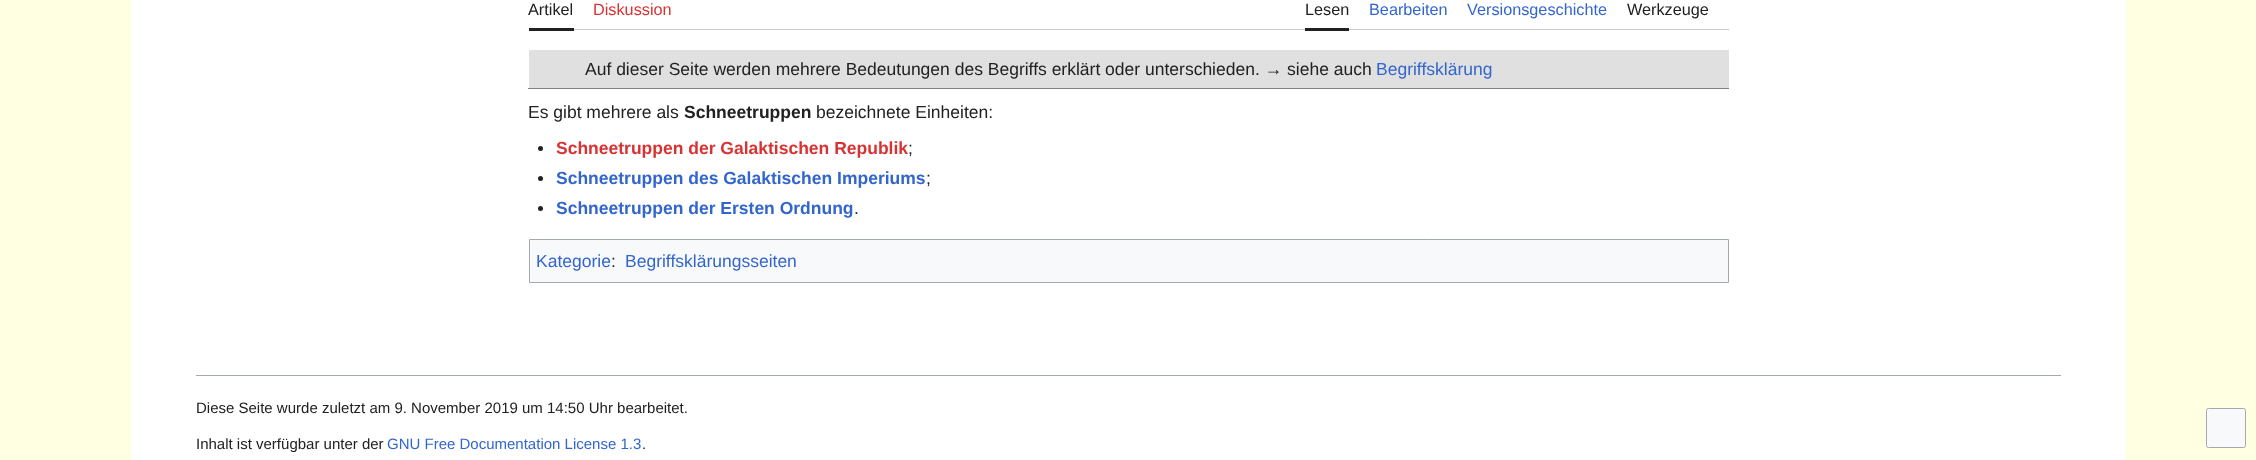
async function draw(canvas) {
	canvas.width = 2256;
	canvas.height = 460;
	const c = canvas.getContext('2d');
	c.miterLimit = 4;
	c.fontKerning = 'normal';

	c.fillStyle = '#ffffe1';
	c.fillRect(0, 0, 2256, 460);
	c.fillStyle = '#fff';
	c.fillRect(131, 0, 1995, 460);
	c.fillStyle = '#c8ccd1';
	c.beginPath();
	c.moveTo(529, 29);
	c.lineTo(529, 30);
	c.lineTo(1729, 30);
	c.lineTo(1729, -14);
	c.lineTo(1729, 29);
	c.closePath();
	c.fill();
	c.fillStyle = '#202122';
	c.fillRect(529, 28, 45, 3);
	c.font = '16.25px Liberation Sans';
	c.fillText('Artikel', 528, 15);
	c.fillStyle = '#d73333';
	c.fillText('Diskussion', 593, 15);
	c.fillStyle = '#202122';
	c.fillRect(1305, 28, 44, 3);
	c.fillText('Lesen', 1305, 15);
	c.fillStyle = '#36c';
	c.fillText('Bearbeiten', 1369, 15);
	c.fillText('Versionsgeschichte', 1467, 15);
	c.fillStyle = '#202122';
	c.fillText('Werkzeuge', 1627, 15);
	c.fillStyle = '#e0e0e0';
	c.fillRect(529, 50, 1200, 38);
	c.fillStyle = '#828282';
	c.fillRect(528, 88, 1201, 1);
	c.font = '17.5px Liberation Sans';
	c.fillStyle = '#202122';
	c.fillText('Auf dieser Seite werden mehrere Bedeutungen des Begriffs erklärt oder unterschieden. → siehe auch', 585, 75);
	c.fillStyle = '#36c';
	c.fillText('Begriffsklärung', 1376, 75);
	c.fillStyle = '#202122';
	c.fillText('Es gibt mehrere als', 528, 118);
	c.font = 'bold 17.5px Liberation Sans';
	c.fillText('Schneetruppen', 684, 118);
	c.font = '17.5px Liberation Sans';
	c.fillText('bezeichnete Einheiten:', 816, 118);
	c.beginPath();
	c.arc(540.5, 148.5, 2.5, 0, 2 * Math.PI);
	c.fill();
	c.font = 'bold 17.5px Liberation Sans';
	c.fillStyle = '#d73333';
	c.fillText('Schneetruppen der Galaktischen Republik', 556, 154);
	c.font = '17.5px Liberation Sans';
	c.fillStyle = '#202122';
	c.fillText(';', 908, 154);
	c.beginPath();
	c.arc(540.5, 178.5, 2.5, 0, 2 * Math.PI);
	c.fill();
	c.font = 'bold 17.5px Liberation Sans';
	c.fillStyle = '#36c';
	c.fillText('Schneetruppen des Galaktischen Imperiums', 556, 184);
	c.font = '17.5px Liberation Sans';
	c.fillStyle = '#202122';
	c.fillText(';', 926, 184);
	c.beginPath();
	c.arc(540.5, 208.5, 2.5, 0, 2 * Math.PI);
	c.fill();
	c.font = 'bold 17.5px Liberation Sans';
	c.fillStyle = '#36c';
	c.fillText('Schneetruppen der Ersten Ordnung', 556, 214);
	c.font = '17.5px Liberation Sans';
	c.fillStyle = '#202122';
	c.fillText('.', 854, 214);
	c.fillStyle = '#f8f9fa';
	c.beginPath();
	c.rect(529.5, 239.5, 1199, 43);
	c.fill();
	c.strokeStyle = '#a2a9b1';
	c.stroke();
	c.fillStyle = '#36c';
	c.fillText('Kategorie', 536, 267);
	c.fillStyle = '#202122';
	c.fillText(':', 611, 267);
	c.fillStyle = '#36c';
	c.fillText('Begriffsklärungsseiten', 625, 267);
	c.fillStyle = '#a2a9b1';
	c.fillRect(196, 375, 1865, 1);
	c.font = '15px Liberation Sans';
	c.fillStyle = '#202122';
	c.fillText('Diese Seite wurde zuletzt am 9. November 2019 um 14:50 Uhr bearbeitet.', 196, 413);
	c.fillText('Inhalt ist verfügbar unter der', 196, 449);
	c.fillStyle = '#36c';
	c.fillText('GNU Free Documentation License 1.3', 387, 449);
	c.fillStyle = '#202122';
	c.fillText('.', 642, 449);
	c.fillStyle = '#f8f9fa';
	c.beginPath();
	c.roundRect(2206.5, 408.5, 39, 39, 2);
	c.fill();
	c.stroke();
}

draw(document.querySelector('canvas'));
